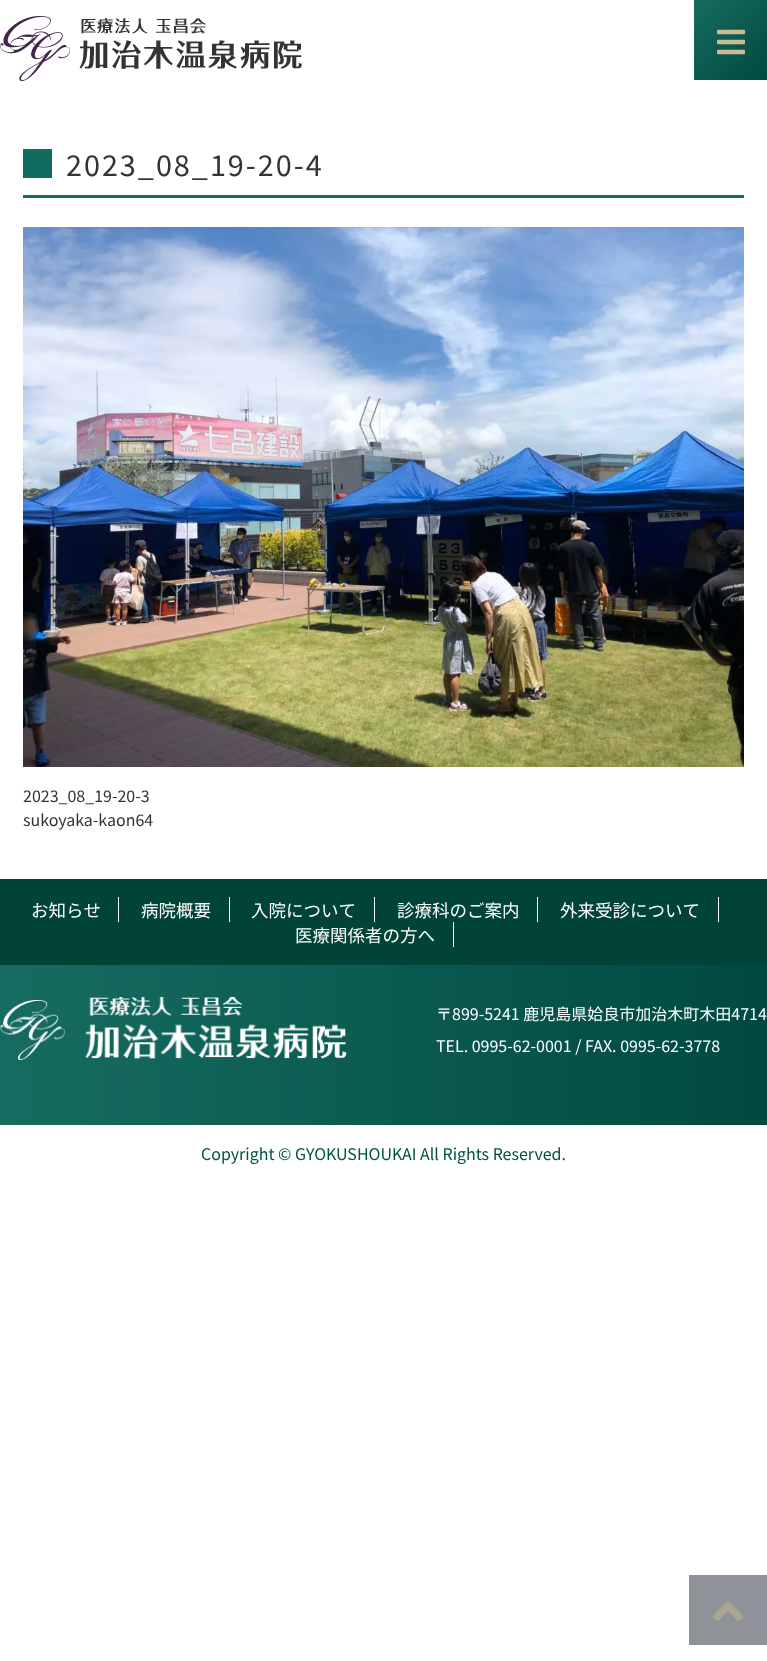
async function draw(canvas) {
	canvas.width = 767;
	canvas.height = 1661;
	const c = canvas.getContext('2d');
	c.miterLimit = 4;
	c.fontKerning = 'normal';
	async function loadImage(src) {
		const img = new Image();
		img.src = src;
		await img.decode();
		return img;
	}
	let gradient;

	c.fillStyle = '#fff';
	c.fillRect(0, 0, 767, 1661);
	c.drawImage(await loadImage('img1.png'), 0, 16, 302, 65);
	gradient = c.createLinearGradient(692, 1.8, 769, 78);
	gradient.addColorStop(0, '#166c60');
	gradient.addColorStop(1, '#004941');
	c.fillStyle = gradient;
	c.fillRect(694, 0, 73, 80);
	c.drawImage(await loadImage('img2.png'), 717, 29, 28, 26);
	c.fillStyle = '#106a5d';
	c.fillRect(23, 195, 721, 3);
	c.fillRect(23, 149, 29, 29);
	c.letterSpacing = '2px';
	c.font = '100 28.75px Noto Sans JP';
	c.fillStyle = '#333';
	c.fillText('2023_08_19-20-4', 66, 176);
	c.drawImage(await loadImage('img3.png'), 23, 227, 721, 540);
	c.letterSpacing = '0px';
	c.font = '100 16px Noto Sans JP';
	c.fillText('2023_08_19-20-3', 23, 802);
	c.fillText('sukoyaka-kaon64', 23, 826);
	c.fillStyle = '#004437';
	c.fillRect(0, 879, 767, 86);
	c.fillStyle = '#fff';
	c.fillRect(118, 897, 1, 25);
	c.font = '100 17.5px Noto Sans JP';
	c.fillText('お知らせ', 31, 917);
	c.fillRect(229, 897, 1, 25);
	c.fillText('病院概要', 141, 917);
	c.fillRect(374, 897, 1, 25);
	c.fillText('入院について', 251, 917);
	c.fillRect(537, 897, 1, 25);
	c.fillText('診療科のご案内', 397, 917);
	c.fillRect(718, 897, 1, 25);
	c.fillText('外来受診について', 560, 917);
	c.fillRect(453, 922, 1, 25);
	c.fillText('医療関係者の方へ', 295, 942);
	gradient = c.createLinearGradient(0, 1045, 767, 1045);
	gradient.addColorStop(0, '#166c60');
	gradient.addColorStop(1, '#004941');
	c.fillStyle = gradient;
	c.fillRect(0, 965, 767, 160);
	c.drawImage(await loadImage('img4.png'), 0, 997, 347, 63);
	c.font = '100 16px Noto Sans JP';
	c.fillStyle = '#fff';
	c.fillText('〒899-5241 鹿児島県姶良市加治木町木田4714', 436, 1020);
	c.fillText('TEL. 0995-62-0001 / FAX. 0995-62-3778', 436, 1052);
	c.fillStyle = '#005242';
	c.fillText('Copyright © GYOKUSHOUKAI All Rights Reserved.', 201, 1160);
	c.fillStyle = '#909299';
	c.fillRect(689, 1575, 78, 70);
	c.drawImage(await loadImage('img5.png'), 713, 1601, 30, 20);
}

draw(document.querySelector('canvas'));
